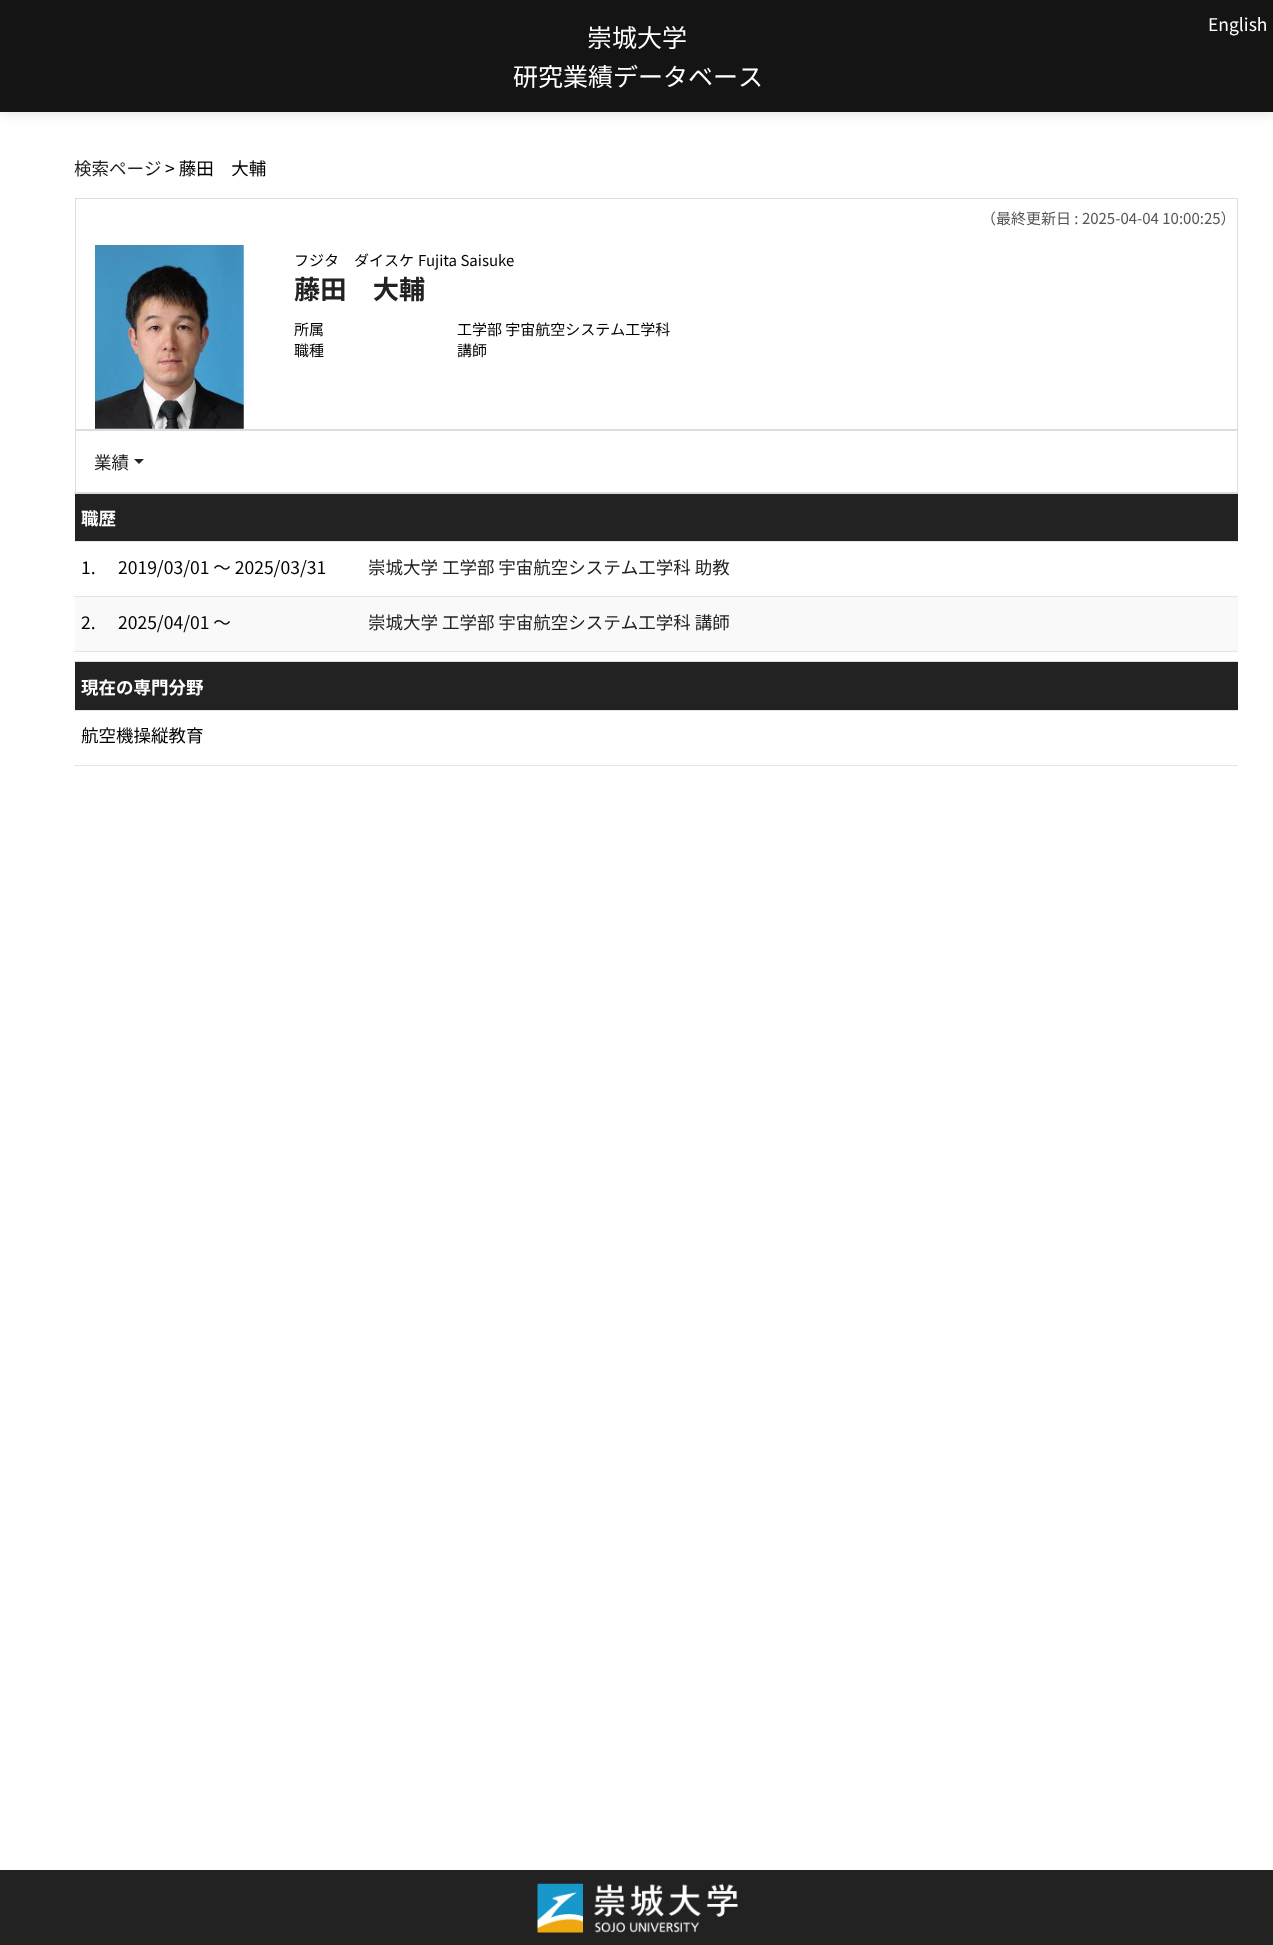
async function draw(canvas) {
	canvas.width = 1273;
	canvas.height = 1945;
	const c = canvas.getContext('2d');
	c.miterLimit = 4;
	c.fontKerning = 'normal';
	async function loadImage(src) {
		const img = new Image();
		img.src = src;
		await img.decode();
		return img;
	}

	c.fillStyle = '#fff';
	c.fillRect(0, 0, 1273, 1945);
	c.fillStyle = '#0000001a';
	c.filter = 'blur(6px)';
	c.beginPath();
	c.rect(0, 1, 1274, 113);
	c.fill();
	c.filter = 'none';
	c.fillStyle = '#141414';
	c.fillRect(0, 0, 1273, 112);
	c.font = '25px Noto Sans JP';
	c.fillStyle = '#fff';
	c.fillText('崇城大学', 587, 47);
	c.fillText('研究業績データベース', 513, 86);
	c.font = '17.5px Noto Sans JP';
	c.fillText('English', 1208, 31);
	c.fillStyle = '#222';
	c.fillText('検索ページ', 74, 175);
	c.fillStyle = '#000';
	c.fillText('> 藤田　大輔', 165, 175);
	c.strokeStyle = '#ddd';
	c.strokeRect(75.5, 198.5, 1162, 231);
	c.font = '15px Noto Sans JP';
	c.fillStyle = '#555';
	c.fillText('（最終更新日 : 2025-04-04 10:00:25）', 981, 224);
	c.drawImage(await loadImage('img1.png'), 95, 245, 149, 184);
	c.fillStyle = '#000';
	c.fillText('フジタ　ダイスケ', 294, 266);
	c.fillText('Fujita Saisuke', 418, 266);
	c.font = 'bold 26.25px Noto Sans JP';
	c.fillStyle = '#222';
	c.fillText('藤田　大輔', 294, 299);
	c.font = '15px Noto Sans JP';
	c.fillStyle = '#000';
	for (const [text, x, y] of [
		['所属', 294, 335],
		['工学部 宇宙航空システム工学科', 457, 335],
		['職種', 294, 356],
		['講師', 457, 356],
	]) {
		c.fillText(text, x, y);
	}
	c.strokeRect(75.5, 430.5, 1162, 62);
	c.font = '17.5px Noto Sans JP';
	c.fillStyle = '#222';
	c.fillText('業績', 94, 469);
	c.beginPath();
	c.moveTo(134, 459);
	c.lineTo(144, 459);
	c.lineTo(139, 464);
	c.closePath();
	c.fill();
	for (const [x, y, w, h, color] of [
		[75, 494, 1163, 47, '#222'],
		[74, 493, 1164, 1, '#ddd'],
		[74, 541, 1164, 1, '#e5e5e5'],
	]) {
		c.fillStyle = color;
		c.fillRect(x, y, w, h);
	}
	c.font = 'bold 17.5px Noto Sans JP';
	c.fillStyle = '#fff';
	c.fillText('職歴', 81, 525);
	c.font = '17.5px Noto Sans JP';
	c.fillStyle = '#000';
	c.fillText('1.', 81, 574);
	c.fillText('2019/03/01 ～ 2025/03/31', 118, 574);
	c.fillStyle = '#e5e5e5';
	c.fillRect(74, 596, 1164, 1);
	c.fillStyle = '#222';
	c.fillText('崇城大学 工学部 宇宙航空システム工学科 助教', 368, 574);
	c.fillStyle = '#f9f9f9';
	c.fillRect(75, 597, 1163, 54);
	c.fillStyle = '#000';
	c.fillText('2.', 81, 629);
	c.fillText('2025/04/01 ～', 118, 629);
	c.fillStyle = '#e5e5e5';
	c.fillRect(74, 651, 1164, 1);
	c.fillStyle = '#222';
	c.fillText('崇城大学 工学部 宇宙航空システム工学科 講師', 368, 629);
	for (const [x, y, w, h, color] of [
		[75, 662, 1163, 48, '#222'],
		[74, 661, 1164, 1, '#ddd'],
		[74, 710, 1164, 1, '#e5e5e5'],
	]) {
		c.fillStyle = color;
		c.fillRect(x, y, w, h);
	}
	c.font = 'bold 17.5px Noto Sans JP';
	c.fillStyle = '#fff';
	c.fillText('現在の専門分野', 81, 694);
	c.fillStyle = '#e5e5e5';
	c.fillRect(74, 765, 1164, 1);
	c.font = '17.5px Noto Sans JP';
	c.fillStyle = '#000';
	c.fillText('航空機操縦教育', 81, 742);
	c.fillStyle = '#222';
	c.fillRect(0, 1870, 1273, 75);
	c.drawImage(await loadImage('img2.png'), 537, 1883, 201, 50);
}

draw(document.querySelector('canvas'));
